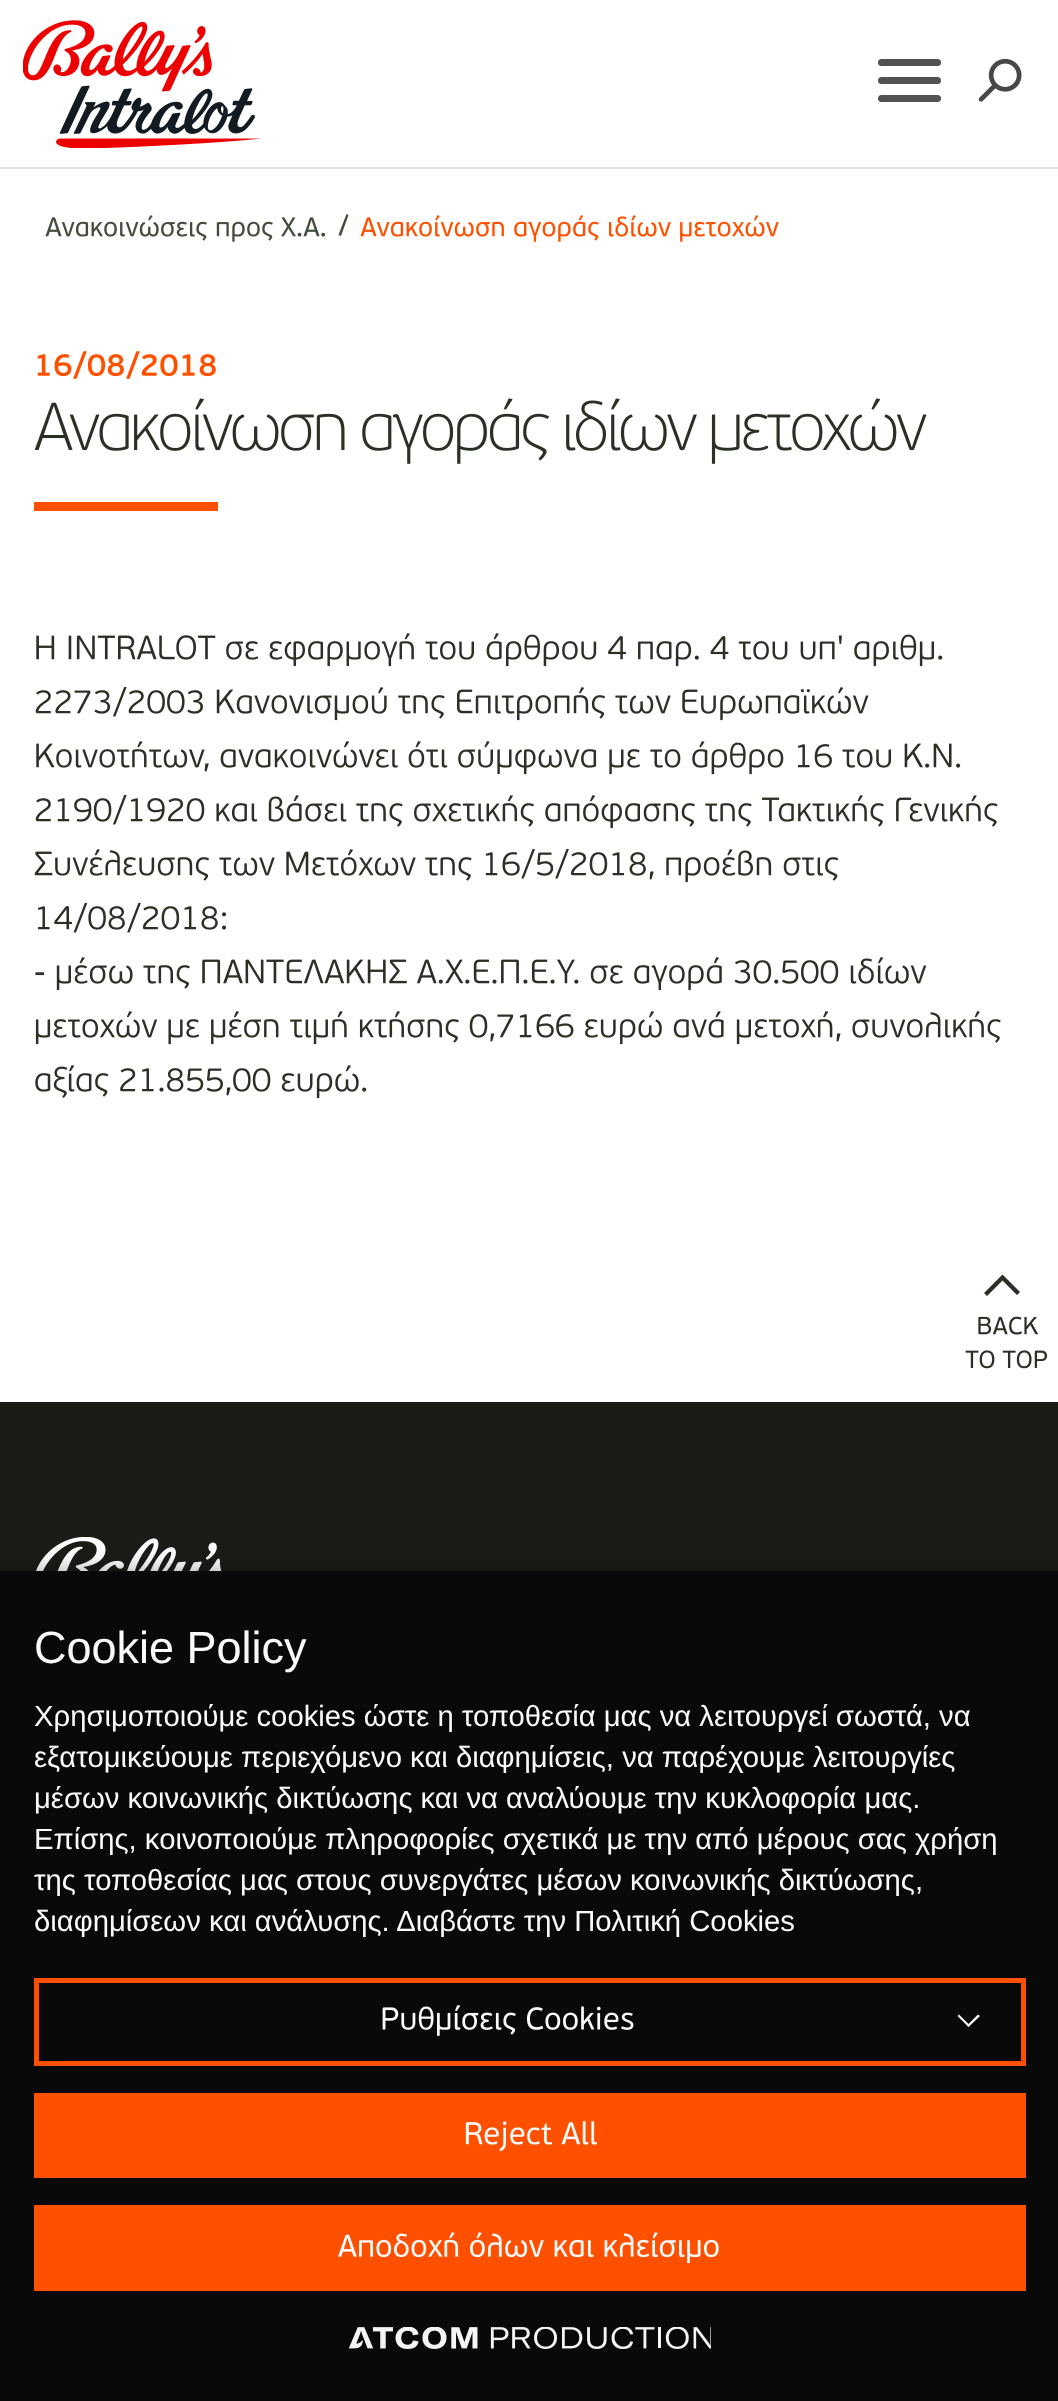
async function draw(canvas) {
	canvas.width = 1058;
	canvas.height = 2401;
	const c = canvas.getContext('2d');
	c.miterLimit = 4;
	c.fontKerning = 'normal';
	async function loadImage(src) {
		const img = new Image();
		img.src = src;
		await img.decode();
		return img;
	}

	c.fillStyle = '#fff';
	c.fillRect(0, 0, 1058, 2401);
	c.fillStyle = '#e3e3e3';
	c.fillRect(0, 167, 1058, 2);
	c.drawImage(await loadImage('img1.png'), 23, 20, 238, 128);
	c.fillStyle = '#535252';
	c.beginPath();
	c.roundRect(878, 77, 63, 7, 3.5);
	c.fill();
	c.beginPath();
	c.roundRect(878, 59, 63, 7, 3.5);
	c.fill();
	c.beginPath();
	c.roundRect(878, 95, 63, 7, 3.5);
	c.fill();
	c.drawImage(await loadImage('img2.png'), 978, 58, 44, 44);
	c.drawImage(await loadImage('img3.png'), 45, 215, 281, 27);
	c.fillStyle = '#444d3d';
	c.beginPath();
	c.moveTo(346.5, 214);
	c.lineTo(348.5, 215);
	c.lineTo(341, 236);
	c.lineTo(338.5, 235);
	c.closePath();
	c.fill();
	c.drawImage(await loadImage('img4.png'), 360, 215, 419, 27);
	c.drawImage(await loadImage('img5.png'), 37, 351, 179, 28);
	c.drawImage(await loadImage('img6.png'), 34, 398, 893, 66);
	c.fillStyle = '#ff5000';
	c.fillRect(34, 502, 184, 9);
	c.drawImage(await loadImage('img7.png'), 36, 633, 907, 34);
	c.drawImage(await loadImage('img8.png'), 35, 686, 834, 35);
	c.drawImage(await loadImage('img9.png'), 36, 741, 925, 34);
	c.drawImage(await loadImage('img10.png'), 35, 794, 963, 35);
	c.drawImage(await loadImage('img11.png'), 34, 848, 805, 35);
	c.drawImage(await loadImage('img12.png'), 38, 902, 188, 31);
	c.drawImage(await loadImage('img13.png'), 35, 957, 892, 34);
	c.drawImage(await loadImage('img14.png'), 35, 1011, 966, 34);
	c.drawImage(await loadImage('img15.png'), 35, 1065, 332, 34);
	c.fillStyle = '#1a1c18';
	c.fillRect(0, 1402, 1058, 169);
	c.fillStyle = '#2b3027';
	c.beginPath();
	c.moveTo(999.5, 1277.5);
	c.lineTo(984, 1293);
	c.lineTo(987, 1296);
	c.lineTo(1002.5, 1280.5);
	c.lineTo(1017, 1295);
	c.lineTo(1020, 1292);
	c.lineTo(1002.5, 1274.5);
	c.closePath();
	c.fill();
	c.drawImage(await loadImage('img16.png'), 978, 1316, 60, 19);
	c.drawImage(await loadImage('img17.png'), 965, 1350, 83, 19);
	c.drawImage(await loadImage('img18.png'), 36, 1537, 186, 34);
	c.fillStyle = '#0000005e';
	c.filter = 'blur(11px)';
	c.beginPath();
	c.rect(0, 1571, 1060, 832);
	c.fill();
	c.filter = 'none';
	c.fillStyle = '#0a0909';
	c.fillRect(0, 1571, 1058, 830);
	c.font = '45px Liberation Sans';
	c.fillStyle = '#fafafa';
	c.fillText('Cookie Policy', 34, 1663);
	c.font = '29.25px Liberation Sans';
	for (const [text, x, y] of [
		['Χρησιμοποιούμε cookies ώστε η τοποθεσία μας να λειτουργεί σωστά, να', 34, 1726],
		['εξατομικεύουμε περιεχόμενο και διαφημίσεις, να παρέχουμε λειτουργίες', 34, 1767],
		['μέσων κοινωνικής δικτύωσης και να αναλύουμε την κυκλοφορία μας.', 34, 1808],
		['Επίσης, κοινοποιούμε πληροφορίες σχετικά με την από μέρους σας χρήση', 34, 1849],
		['της τοποθεσίας μας στους συνεργάτες μέσων κοινωνικής δικτύωσης,', 34, 1890],
		['διαφημίσεων και ανάλυσης. Διαβάστε την Πολιτική Cookies', 34, 1931],
	]) {
		c.fillText(text, x, y);
	}
	c.strokeStyle = '#ff5000';
	c.lineWidth = 5;
	c.strokeRect(36.5, 1980.5, 987, 83);
	c.drawImage(await loadImage('img19.png'), 382, 2005, 252, 31);
	c.beginPath();
	c.moveTo(978, 2014.5);
	c.lineTo(980, 2016);
	c.lineTo(968.5, 2027);
	c.lineTo(967, 2025.5);
	c.closePath();
	c.fill();
	c.beginPath();
	c.moveTo(959, 2014.5);
	c.lineTo(970, 2025.5);
	c.lineTo(968.5, 2027);
	c.lineTo(957.5, 2016);
	c.closePath();
	c.fill();
	c.fillStyle = '#ff5000';
	c.fillRect(34, 2093, 992, 85);
	c.drawImage(await loadImage('img20.png'), 465, 2121, 132, 31);
	c.fillRect(34, 2205, 992, 86);
	c.drawImage(await loadImage('img21.png'), 338, 2232, 381, 32);
	c.drawImage(await loadImage('img22.png'), 349, 2327, 362, 22);
}

draw(document.querySelector('canvas'));
